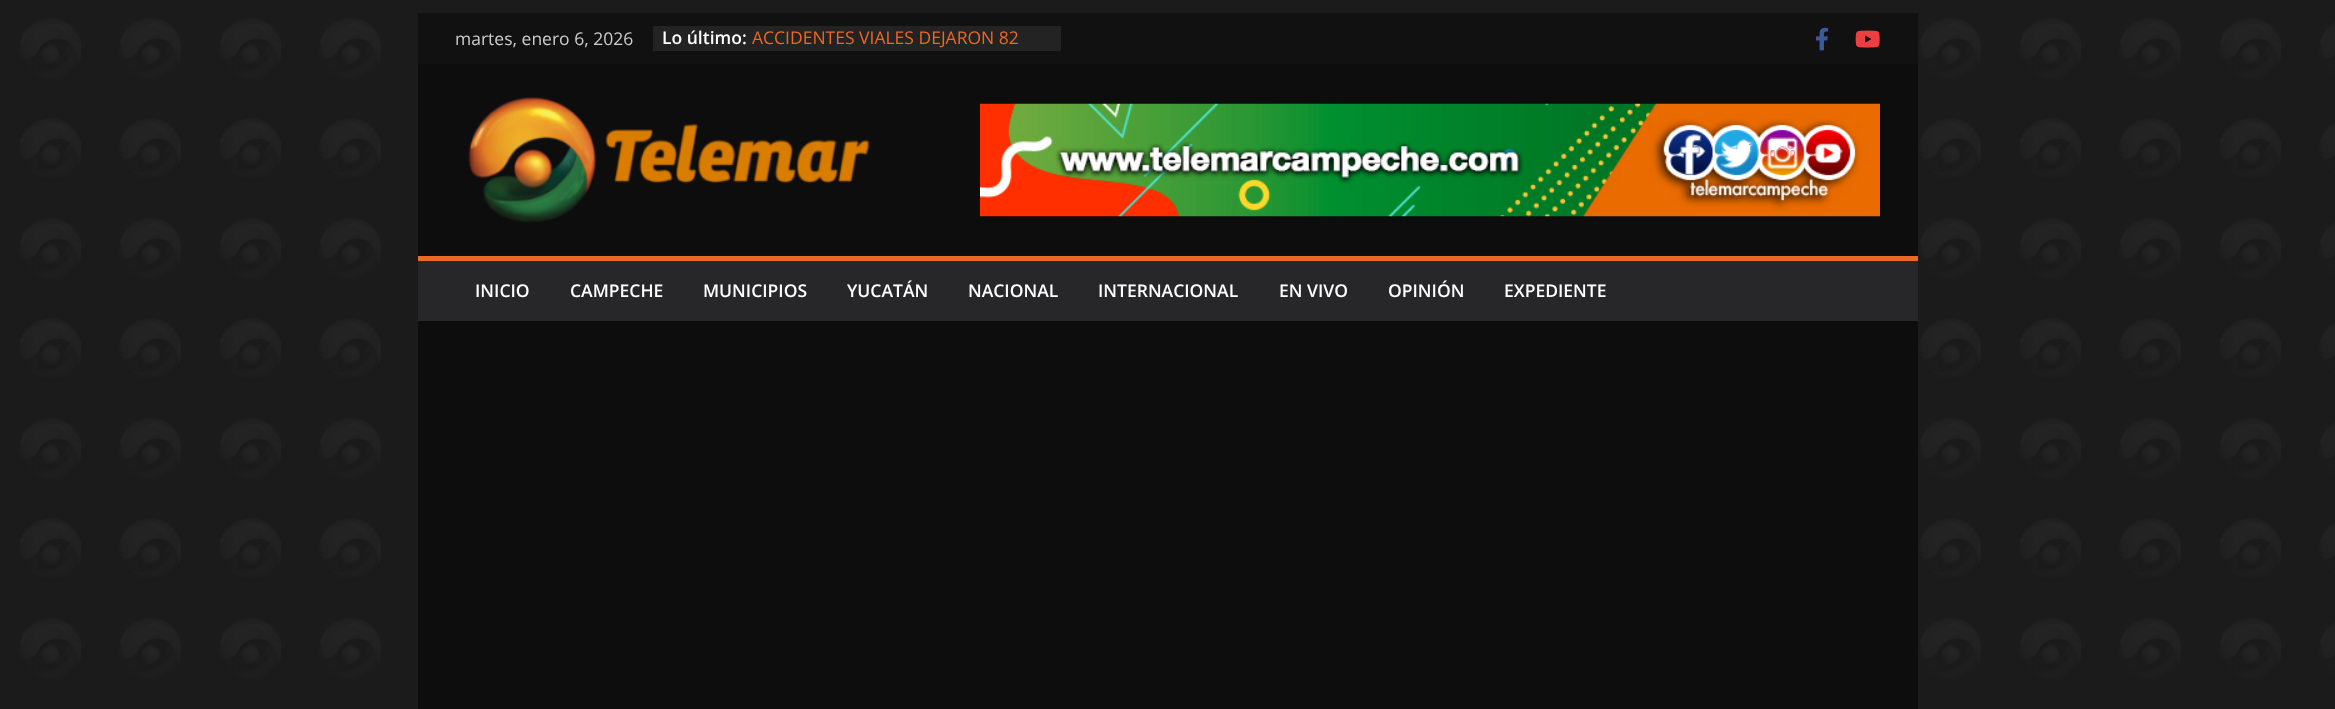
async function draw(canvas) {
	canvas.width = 2335;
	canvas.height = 709;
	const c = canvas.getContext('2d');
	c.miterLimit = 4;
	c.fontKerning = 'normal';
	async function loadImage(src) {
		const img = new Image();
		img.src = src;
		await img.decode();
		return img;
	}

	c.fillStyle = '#fff';
	c.fillRect(0, 0, 2335, 709);
	c.drawImage(await loadImage('img1.png'), 0, 0, 2335, 709);
	c.fillStyle = '#0d0d0d';
	c.fillRect(418, 321, 1500, 388);
	c.fillStyle = '#111';
	c.fillRect(418, 13, 1500, 51);
	c.font = '17.5px Open Sans';
	c.fillStyle = '#ccc';
	c.fillText('martes, enero 6, 2026', 455, 45);
	c.fillStyle = '#232323';
	c.fillRect(653, 26, 408, 25);
	c.font = '600 17.5px Open Sans';
	c.fillStyle = '#fff';
	c.fillText('Lo último:', 662, 44);
	c.font = '17.5px Open Sans';
	c.fillStyle = '#ed6825';
	c.fillText('ACCIDENTES VIALES DEJARON 82', 752, 44);
	c.drawImage(await loadImage('img2.png'), 1816, 27, 13, 24);
	c.drawImage(await loadImage('img3.png'), 1855, 30, 25, 18);
	c.fillStyle = '#0d0d0d';
	c.fillRect(418, 64, 1500, 192);
	c.drawImage(await loadImage('img4.png'), 468, 97, 402, 126);
	c.drawImage(await loadImage('img5.png'), 980, 103, 900, 114);
	c.fillStyle = '#27272a';
	c.fillRect(418, 261, 1500, 60);
	c.fillStyle = '#ed6825';
	c.fillRect(418, 256, 1500, 5);
	c.font = '600 17.5px Open Sans';
	c.fillStyle = '#fff';
	for (const [text, x, y] of [
		['INICIO', 475, 297],
		['CAMPECHE', 570, 297],
		['MUNICIPIOS', 703, 297],
		['YUCATÁN', 847, 297],
		['NACIONAL', 968, 297],
		['INTERNACIONAL', 1098, 297],
		['EN VIVO', 1279, 297],
		['OPINIÓN', 1388, 297],
		['EXPEDIENTE', 1504, 297],
	]) {
		c.fillText(text, x, y);
	}
}

draw(document.querySelector('canvas'));
